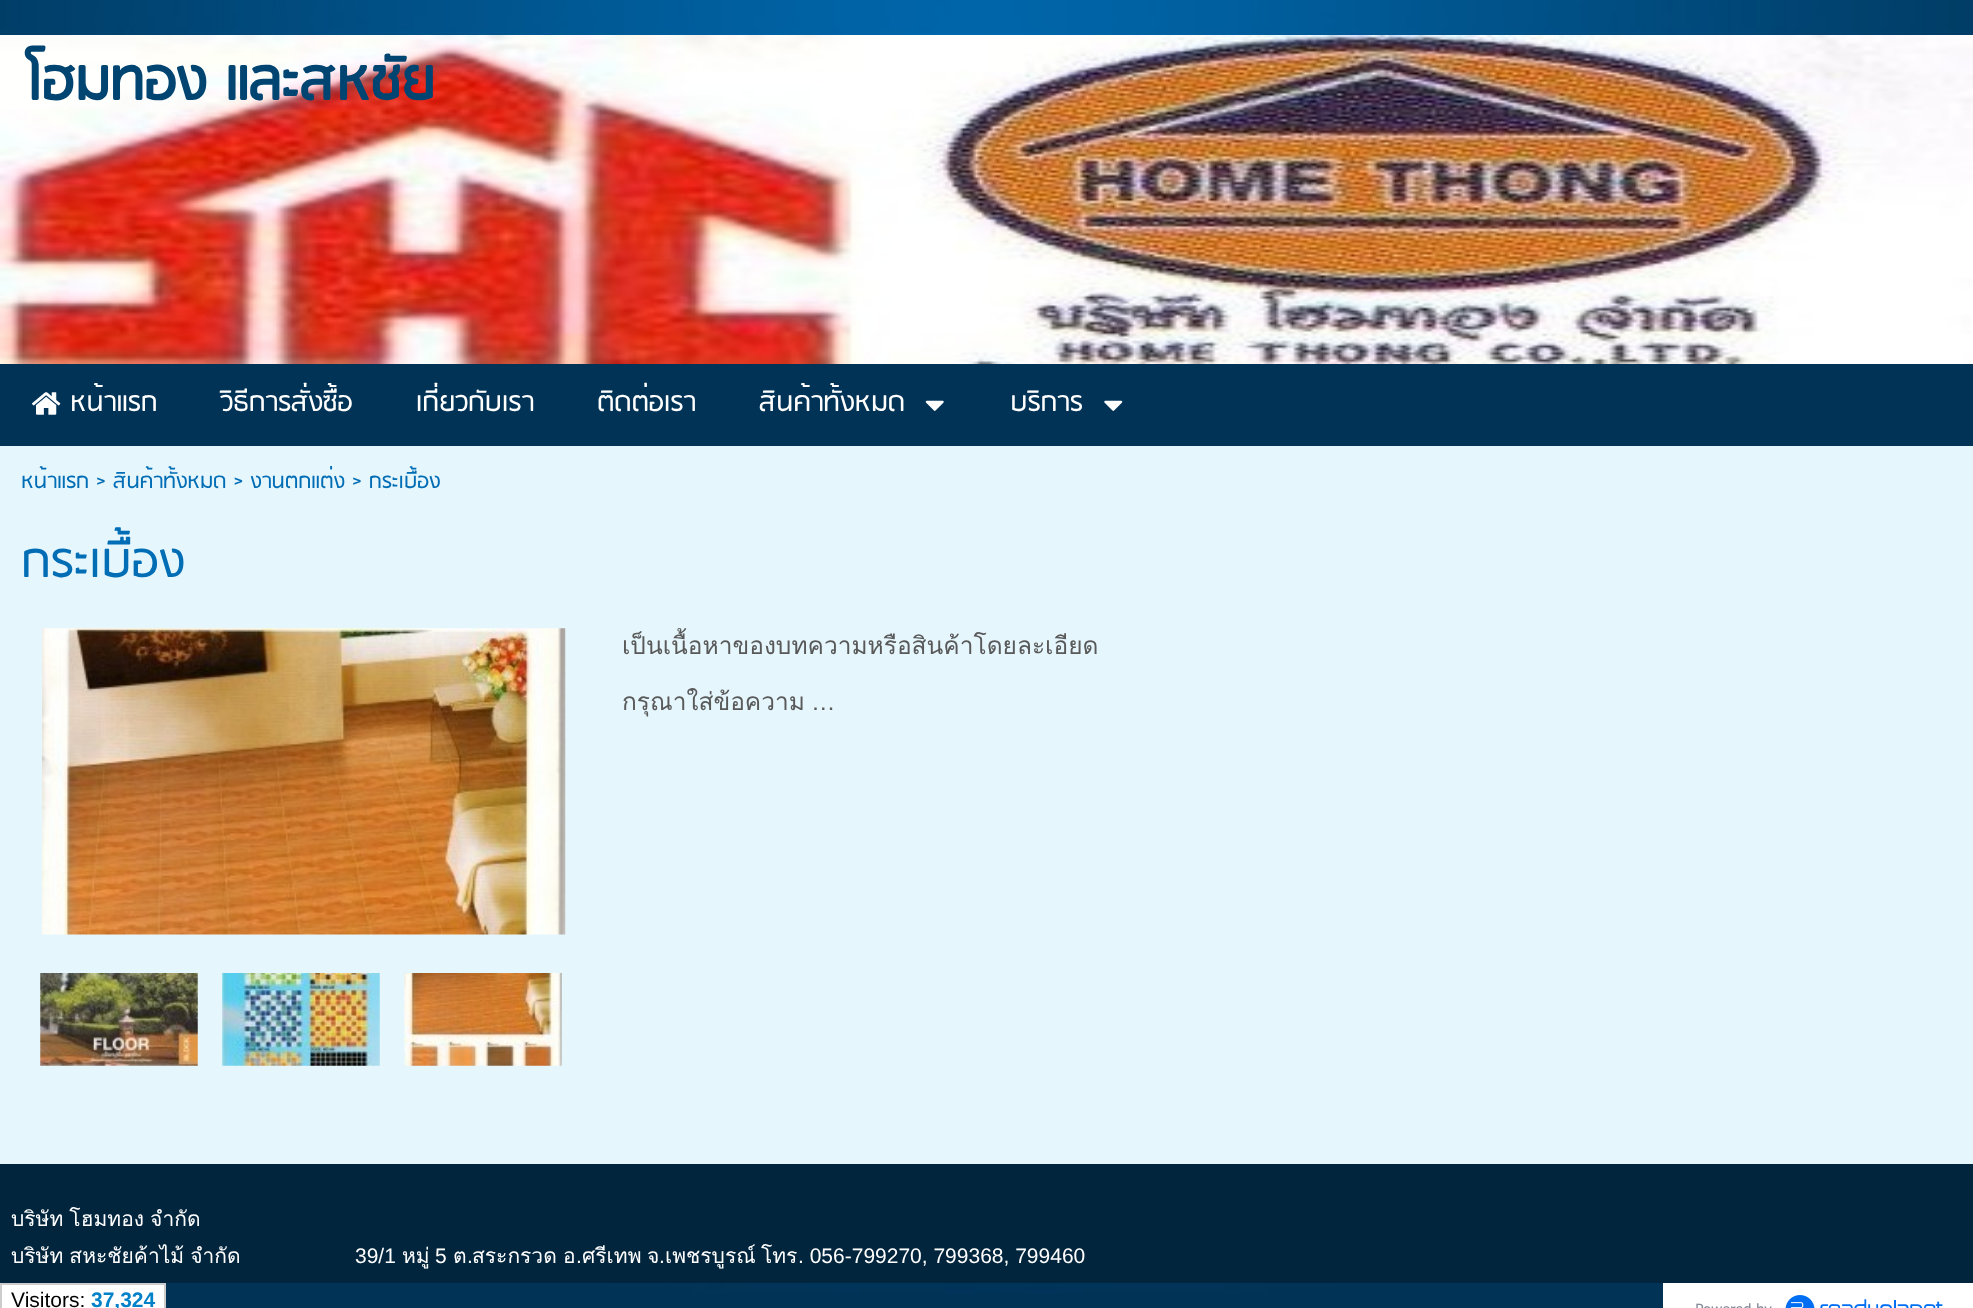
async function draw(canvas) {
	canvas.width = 1973;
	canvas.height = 1308;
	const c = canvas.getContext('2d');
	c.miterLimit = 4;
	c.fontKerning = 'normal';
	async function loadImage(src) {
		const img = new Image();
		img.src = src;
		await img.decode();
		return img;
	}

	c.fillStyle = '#013356';
	c.fillRect(0, 0, 1973, 1308);
	c.drawImage(await loadImage('img1.png'), 0, 0, 1973, 1294);
	c.drawImage(await loadImage('img2.png'), 0, 35, 1973, 329);
	c.font = 'bold 65.75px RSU';
	c.fillStyle = '#004471';
	c.fillText('โฮมทอง และสหชัย', 27, 100);
	c.fillStyle = '#013356';
	c.fillRect(0, 364, 1973, 82);
	c.drawImage(await loadImage('img3.png'), 32, 392, 29, 23);
	c.font = '31.5px RSU';
	c.fillStyle = '#fff';
	for (const [text, x, y] of [
		['หน้าแรก', 70, 411],
		['วิธีการสั่งซื้อ', 220, 411],
		['เกี่ยวกับเรา', 416, 411],
		['ติดต่อเรา', 597, 411],
		['สินค้าทั้งหมด', 759, 411],
	]) {
		c.fillText(text, x, y);
	}
	c.drawImage(await loadImage('img4.png'), 925, 400, 19, 11);
	c.fillText('บริการ', 1010, 411);
	c.drawImage(await loadImage('img5.png'), 1104, 400, 19, 11);
	c.fillStyle = '#e5f6fd';
	c.fillRect(0, 446, 1973, 718);
	c.font = '24.5px RSU';
	c.fillStyle = '#006db5';
	c.fillText('หน้าแรก > สินค้าทั้งหมด > งานตกแต่ง > กระเบื้อง', 21, 488);
	c.font = '56px RSU';
	c.fillText('กระเบื้อง', 21, 577);
	c.drawImage(await loadImage('img6.png'), 42, 628, 524, 307);
	c.drawImage(await loadImage('img7.png'), 40, 973, 158, 93);
	c.drawImage(await loadImage('img8.png'), 222, 973, 158, 93);
	c.drawImage(await loadImage('img9.png'), 404, 973, 158, 93);
	c.font = '24.5px Loma';
	c.fillStyle = '#595959';
	c.fillText('เป็นเนื้อหาของบทความหรือสินค้าโดยละเอียด', 622, 654);
	c.fillText('กรุณาใส่ข้อความ', 622, 710);
	c.font = '24.5px Liberation Sans';
	c.fillText('…', 811, 710);
	c.fillStyle = '#01253d';
	c.fillRect(0, 1164, 1973, 119);
	c.wordSpacing = '-1px';
	c.font = '21px Loma';
	c.fillStyle = '#fff';
	c.fillText('บริษัท โฮมทอง จำกัด', 11, 1226);
	c.fillText('บริษัท สหะชัยค้าไม้ จำกัด', 11, 1263);
	c.wordSpacing = '0px';
	c.font = '21px Liberation Sans';
	c.fillText('39/1', 355, 1263);
	c.font = '21px Loma';
	c.fillText('หมู่', 402, 1263);
	c.font = '21px Liberation Sans';
	c.fillText('5', 435, 1263);
	c.font = '21px Loma';
	c.fillText('ต', 453, 1263);
	c.font = '21px Liberation Sans';
	c.fillText('.', 467, 1263);
	c.font = '21px Loma';
	c.fillText('สระกรวด', 472, 1263);
	c.fillText('อ', 563, 1263);
	c.font = '21px Liberation Sans';
	c.fillText('.', 576, 1263);
	c.font = '21px Loma';
	c.fillText('ศรีเทพ', 582, 1263);
	c.fillText('จ', 647, 1263);
	c.font = '21px Liberation Sans';
	c.fillText('.', 659, 1263);
	c.font = '21px Loma';
	c.fillText('เพชรบูรณ์', 665, 1263);
	c.fillText('โทร', 761, 1263);
	c.font = '21px Liberation Sans';
	c.fillText('. 056-799270, 799368, 799460', 798, 1263);
	c.beginPath();
	c.rect(1, 1284, 164, 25);
	c.fill();
	c.strokeStyle = '#ccc';
	c.lineWidth = 2;
	c.stroke();
	c.fillStyle = '#000';
	c.fillText('Visitors:', 11, 1307);
	c.font = 'bold 21px Liberation Sans';
	c.fillStyle = '#0081c8';
	c.fillText('37,324', 91, 1307);
	c.fillStyle = '#fff';
	c.fillRect(1663, 1283, 310, 25);
	c.drawImage(await loadImage('img10.png'), 1696, 1295, 247, 13);
}

draw(document.querySelector('canvas'));
